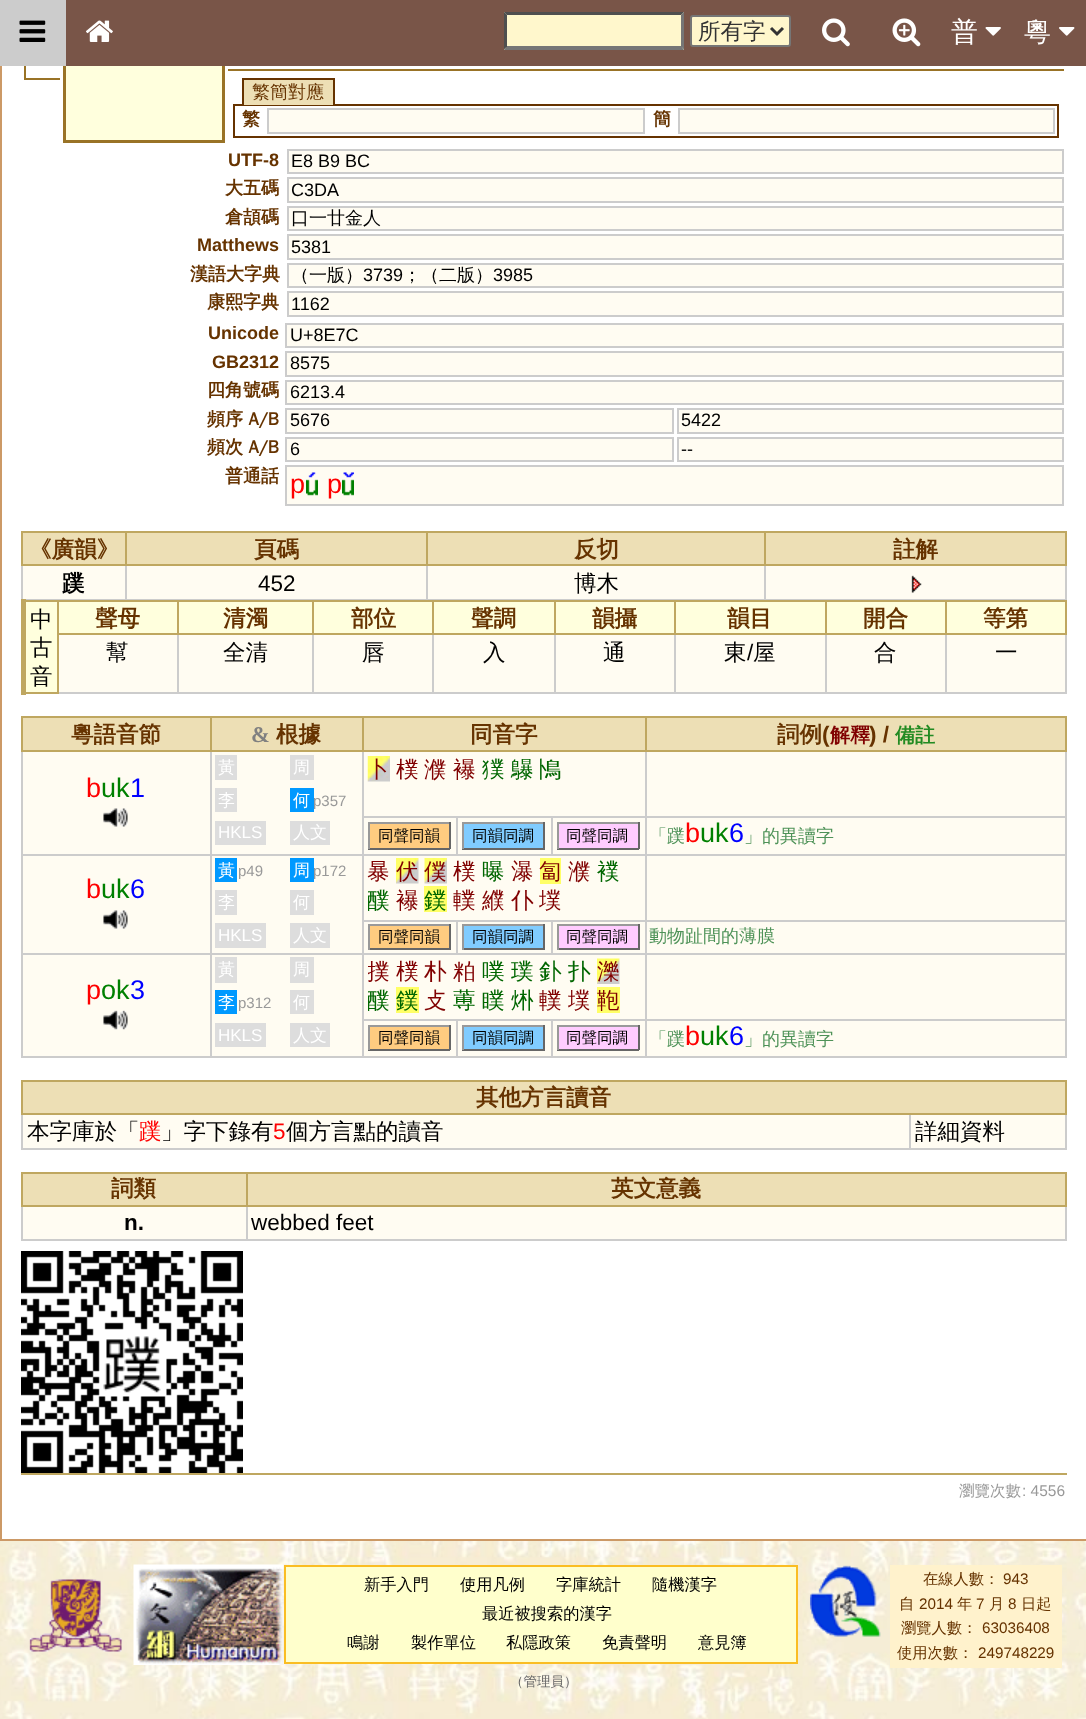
async function draw(canvas) {
	canvas.width = 1086;
	canvas.height = 1719;
	const c = canvas.getContext('2d');
	c.miterLimit = 4;
	c.fontKerning = 'normal';
	async function loadImage(src) {
		const img = new Image();
		img.src = src;
		await img.decode();
		return img;
	}

	c.fillStyle = '#fff';
	c.fillRect(0, 0, 1086, 1719);
	c.drawImage(await loadImage('img1.png'), 0, 1541, 1086, 178);
	c.fillStyle = '#ffd';
	c.fillRect(66, 66, 156, 74);
	c.strokeStyle = '#997326';
	c.lineWidth = 3;
	c.strokeRect(64.5, -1.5, 159, 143);
	c.fillStyle = '#795548';
	c.fillRect(66, 0, 1020, 66);
	c.fillStyle = '#ccc';
	c.fillRect(0, 0, 66, 66);
	c.drawImage(await loadImage('img2.png'), 19, 20, 27, 22);
	c.drawImage(await loadImage('img3.png'), 86, 20, 27, 22);
	c.fillStyle = '#fff7cc';
	c.fillRect(504, 12, 180, 38);
	c.fillStyle = '#4f4f4f';
	c.beginPath();
	c.moveTo(504, 12);
	c.lineTo(684, 12);
	c.lineTo(681, 15);
	c.lineTo(507, 15);
	c.closePath();
	c.fill();
	c.fillStyle = '#767676';
	c.beginPath();
	c.moveTo(684, 12);
	c.lineTo(684, 49.5);
	c.lineTo(681, 46.5);
	c.lineTo(681, 15);
	c.closePath();
	c.fill();
	c.beginPath();
	c.moveTo(684, 50);
	c.lineTo(504, 50);
	c.lineTo(507, 46);
	c.lineTo(681, 46);
	c.closePath();
	c.fill();
	c.fillStyle = '#4f4f4f';
	c.beginPath();
	c.moveTo(504, 49.5);
	c.lineTo(504, 12);
	c.lineTo(507, 15);
	c.lineTo(507, 46.5);
	c.closePath();
	c.fill();
	c.fillStyle = '#fff7cc';
	c.beginPath();
	c.roundRect(691, 16, 99, 30, 2);
	c.fill();
	c.strokeStyle = '#767676';
	c.lineWidth = 2;
	c.stroke();
	c.beginPath();
	c.moveTo(771, 28);
	c.lineTo(777, 34);
	c.lineTo(783, 28);
	c.strokeStyle = '#333';
	c.lineWidth = 3;
	c.stroke();
	c.font = '500 22.5px WenQuanYi Zen Hei';
	c.fillStyle = '#333';
	c.fillText('所有字', 698, 39);
	c.drawImage(await loadImage('img4.png'), 822, 18, 28, 29);
	c.drawImage(await loadImage('img5.png'), 892, 18, 29, 29);
	c.font = '500 27px WenQuanYi Zen Hei';
	c.fillStyle = '#fff';
	c.fillText('普', 951, 41);
	c.drawImage(await loadImage('img6.png'), 985, 27, 16, 9);
	c.fillText('粵', 1024, 41);
	c.drawImage(await loadImage('img7.png'), 1059, 27, 16, 9);
	for (const [x, y, w, h, color] of [
		[0, 1539, 1086, 2, '#c96'],
		[0, 66, 2, 1475, '#c96'],
		[24, 78, 36, 2, '#997326'],
		[24, 66, 2, 14, '#997326'],
		[228, 69, 836, 2, '#997326'],
	]) {
		c.fillStyle = color;
		c.fillRect(x, y, w, h);
	}
	c.strokeStyle = '#630';
	c.lineWidth = 2;
	c.strokeRect(234, 105, 824, 32);
	c.fillStyle = '#eddfb5';
	c.fillRect(244, 80, 89, 25);
	c.font = '500 18px WenQuanYi Zen Hei';
	c.fillStyle = '#630';
	c.fillText('繁簡對應', 252, 98);
	for (const [x, y, w, h, color] of [
		[242, 78, 93, 2, '#630'],
		[333, 78, 2, 27, '#630'],
		[242, 78, 2, 27, '#630'],
	]) {
		c.fillStyle = color;
		c.fillRect(x, y, w, h);
	}
	c.font = 'bold 18px WenQuanYi Zen Hei';
	c.fillText('繁', 242, 125);
	c.fillStyle = '#fffcf2';
	c.beginPath();
	c.rect(268, 109, 376, 24);
	c.fill();
	c.strokeStyle = '#ccc';
	c.stroke();
	c.fillStyle = '#630';
	c.fillText('簡', 653, 125);
	c.fillStyle = '#fffcf2';
	c.beginPath();
	c.rect(679, 109, 375, 24);
	c.fill();
	c.stroke();
	c.font = 'bold 18px Liberation Sans';
	c.fillStyle = '#630';
	c.fillText('UTF-8', 228, 166);
	c.fillStyle = '#fffcf2';
	c.beginPath();
	c.rect(288, 150, 775, 23);
	c.fill();
	c.stroke();
	c.font = '18px Liberation Sans';
	c.fillStyle = '#000';
	c.fillText('E8 B9 BC', 291, 167);
	c.font = 'bold 18px WenQuanYi Zen Hei';
	c.fillStyle = '#630';
	c.fillText('大五碼', 225, 194);
	c.fillStyle = '#fffcf2';
	c.beginPath();
	c.rect(288, 178, 775, 24);
	c.fill();
	c.stroke();
	c.font = '18px Liberation Sans';
	c.fillStyle = '#000';
	c.fillText('C3DA', 291, 196);
	c.font = 'bold 18px WenQuanYi Zen Hei';
	c.fillStyle = '#630';
	c.fillText('倉頡碼', 225, 223);
	c.fillStyle = '#fffcf2';
	c.beginPath();
	c.rect(288, 207, 775, 23);
	c.fill();
	c.stroke();
	c.font = '500 18px WenQuanYi Zen Hei';
	c.fillStyle = '#000';
	c.fillText('口一廿金人', 291, 224);
	c.font = 'bold 18px Liberation Sans';
	c.fillStyle = '#630';
	c.fillText('Matthews', 197, 251);
	c.fillStyle = '#fffcf2';
	c.beginPath();
	c.rect(288, 235, 775, 24);
	c.fill();
	c.stroke();
	c.font = '18px Liberation Sans';
	c.fillStyle = '#000';
	c.fillText('5381', 291, 253);
	c.font = 'bold 18px WenQuanYi Zen Hei';
	c.fillStyle = '#630';
	c.fillText('漢語大字典', 190, 280);
	c.fillStyle = '#fffcf2';
	c.beginPath();
	c.rect(288, 264, 775, 23);
	c.fill();
	c.stroke();
	c.font = '500 18px WenQuanYi Zen Hei';
	c.fillStyle = '#000';
	c.fillText('（一版）', 291, 281);
	c.font = '18px Liberation Sans';
	c.fillText('3739', 363, 281);
	c.font = '500 18px WenQuanYi Zen Hei';
	c.fillText('；（二版）', 403, 281);
	c.font = '18px Liberation Sans';
	c.fillText('3985', 493, 281);
	c.font = 'bold 18px WenQuanYi Zen Hei';
	c.fillStyle = '#630';
	c.fillText('康熙字典', 207, 308);
	c.fillStyle = '#fffcf2';
	c.beginPath();
	c.rect(288, 292, 775, 24);
	c.fill();
	c.stroke();
	c.font = '18px Liberation Sans';
	c.fillStyle = '#000';
	c.fillText('1162', 291, 310);
	c.font = 'bold 18px Liberation Sans';
	c.fillStyle = '#630';
	c.fillText('Unicode', 208, 339);
	c.fillStyle = '#fffcf2';
	c.beginPath();
	c.rect(286, 324, 777, 23);
	c.fill();
	c.stroke();
	c.font = '18px Liberation Sans';
	c.fillStyle = '#000';
	c.fillText('U+8E7C', 290, 341);
	c.font = 'bold 18px Liberation Sans';
	c.fillStyle = '#630';
	c.fillText('GB2312', 212, 368);
	c.fillStyle = '#fffcf2';
	c.beginPath();
	c.rect(286, 352, 777, 24);
	c.fill();
	c.stroke();
	c.font = '18px Liberation Sans';
	c.fillStyle = '#000';
	c.fillText('8575', 290, 369);
	c.font = 'bold 18px WenQuanYi Zen Hei';
	c.fillStyle = '#630';
	c.fillText('四角號碼', 207, 396);
	c.fillStyle = '#fffcf2';
	c.beginPath();
	c.rect(286, 381, 777, 23);
	c.fill();
	c.stroke();
	c.font = '18px Liberation Sans';
	c.fillStyle = '#000';
	c.fillText('6213.4', 290, 398);
	c.font = 'bold 18px WenQuanYi Zen Hei';
	c.fillStyle = '#630';
	c.fillText('頻序 A/B', 207, 425);
	c.fillStyle = '#fffcf2';
	c.beginPath();
	c.rect(286, 409, 387, 24);
	c.fill();
	c.stroke();
	c.font = '18px Liberation Sans';
	c.fillStyle = '#000';
	c.fillText('5676', 290, 426);
	c.fillStyle = '#fffcf2';
	c.beginPath();
	c.rect(678, 409, 385, 24);
	c.fill();
	c.stroke();
	c.fillStyle = '#000';
	c.fillText('5422', 681, 426);
	c.font = 'bold 18px WenQuanYi Zen Hei';
	c.fillStyle = '#630';
	c.fillText('頻次 A/B', 207, 453);
	c.fillStyle = '#fffcf2';
	c.beginPath();
	c.rect(286, 438, 387, 23);
	c.fill();
	c.stroke();
	c.font = '18px Liberation Sans';
	c.fillStyle = '#000';
	c.fillText('6', 290, 455);
	c.fillStyle = '#fffcf2';
	c.beginPath();
	c.rect(678, 438, 385, 23);
	c.fill();
	c.stroke();
	c.fillStyle = '#000';
	c.fillText('--', 681, 455);
	c.font = 'bold 18px WenQuanYi Zen Hei';
	c.fillStyle = '#630';
	c.fillText('普通話', 225, 482);
	c.fillStyle = '#fffcf2';
	c.beginPath();
	c.rect(286, 466, 777, 39);
	c.fill();
	c.stroke();
	c.font = '27px Liberation Sans';
	c.fillStyle = '#f00';
	c.fillText('p', 290, 493);
	c.drawImage(await loadImage('img8.png'), 306, 472, 12, 24);
	c.fillText('p', 327, 493);
	c.drawImage(await loadImage('img9.png'), 342, 472, 12, 24);
	for (const [x, y, w, h, color] of [
		[21, 531, 1046, 2, '#bfa760'],
		[21, 531, 2, 33, '#bfa760'],
		[23, 533, 102, 31, '#eddfb5'],
		[1065, 564, 2, 36, '#ccc'],
		[1065, 531, 2, 35, '#bfa760'],
		[764, 599, 303, 1, '#ccc'],
		[764, 564, 2, 36, '#ccc'],
		[764, 564, 303, 2, '#bfa760'],
		[764, 531, 2, 35, '#bfa760'],
		[426, 599, 339, 1, '#ccc'],
		[426, 564, 2, 36, '#ccc'],
		[426, 564, 339, 2, '#bfa760'],
		[426, 531, 2, 35, '#bfa760'],
		[125, 599, 303, 1, '#ccc'],
		[125, 564, 2, 36, '#ccc'],
		[125, 564, 303, 2, '#bfa760'],
		[125, 531, 2, 35, '#bfa760'],
		[21, 599, 105, 1, '#ccc'],
		[21, 564, 2, 36, '#ccc'],
		[21, 564, 105, 2, '#bfa760'],
	]) {
		c.fillStyle = color;
		c.fillRect(x, y, w, h);
	}
	c.font = 'bold 22.5px WenQuanYi Zen Hei';
	c.fillStyle = '#630';
	c.fillText('《廣韻》', 29, 557);
	c.fillStyle = '#eddfb5';
	c.fillRect(127, 533, 299, 31);
	c.fillStyle = '#630';
	c.fillText('頁碼', 254, 557);
	c.fillStyle = '#eddfb5';
	c.fillRect(428, 533, 336, 31);
	c.fillStyle = '#630';
	c.fillText('反切', 574, 557);
	c.fillStyle = '#eddfb5';
	c.fillRect(766, 533, 299, 31);
	c.fillStyle = '#630';
	c.fillText('註解', 893, 557);
	c.fillStyle = '#fffcf2';
	c.fillRect(23, 566, 102, 33);
	c.fillStyle = '#000';
	c.fillText('蹼', 62, 591);
	c.fillStyle = '#fffcf2';
	c.fillRect(127, 566, 299, 33);
	c.font = '22.5px Liberation Sans';
	c.fillStyle = '#000';
	c.fillText('452', 258, 591);
	c.fillStyle = '#fffcf2';
	c.fillRect(428, 566, 336, 33);
	c.font = '500 22.5px WenQuanYi Zen Hei';
	c.fillStyle = '#000';
	c.fillText('博木', 574, 591);
	c.fillStyle = '#fffcf2';
	c.fillRect(766, 566, 299, 33);
	c.drawImage(await loadImage('img10.png'), 911, 575, 11, 18);
	for (const [x, y, w, h, color] of [
		[21, 600, 1046, 2, '#bfa760'],
		[26, 602, 31, 90, '#ffd'],
		[1065, 633, 2, 60, '#ccc'],
		[1065, 600, 2, 35, '#bfa760'],
		[945, 692, 122, 2, '#ccc'],
		[945, 633, 2, 60, '#ccc'],
		[945, 633, 122, 2, '#bfa760'],
		[945, 600, 2, 35, '#bfa760'],
		[825, 692, 122, 2, '#ccc'],
		[825, 633, 2, 60, '#ccc'],
		[825, 633, 122, 2, '#bfa760'],
		[825, 600, 2, 35, '#bfa760'],
		[674, 692, 153, 2, '#ccc'],
		[674, 633, 2, 60, '#ccc'],
		[674, 633, 153, 2, '#bfa760'],
		[674, 600, 2, 35, '#bfa760'],
		[554, 692, 121, 2, '#ccc'],
		[554, 633, 2, 60, '#ccc'],
		[554, 633, 121, 2, '#bfa760'],
		[554, 600, 2, 35, '#bfa760'],
		[432, 692, 123, 2, '#ccc'],
		[432, 633, 2, 60, '#ccc'],
		[432, 633, 123, 2, '#bfa760'],
		[432, 600, 2, 35, '#bfa760'],
		[312, 692, 122, 2, '#ccc'],
		[312, 633, 2, 60, '#ccc'],
		[312, 633, 122, 2, '#bfa760'],
		[312, 600, 2, 35, '#bfa760'],
		[177, 692, 137, 2, '#ccc'],
		[177, 633, 2, 60, '#ccc'],
		[177, 633, 137, 2, '#bfa760'],
		[177, 600, 2, 35, '#bfa760'],
		[57, 633, 122, 2, '#bfa760'],
		[57, 692, 122, 2, '#ccc'],
		[57, 600, 2, 93, '#bfa760'],
		[23, 692, 36, 2, '#bfa760'],
		[21, 599, 5, 96, '#bfa760'],
	]) {
		c.fillStyle = color;
		c.fillRect(x, y, w, h);
	}
	c.fillStyle = '#000';
	for (const [text, x, y] of [
		['中', 30, 627],
		['古', 30, 655],
		['音', 30, 684],
	]) {
		c.fillText(text, x, y);
	}
	c.fillStyle = '#ffd';
	c.fillRect(59, 602, 118, 31);
	c.font = 'bold 22.5px WenQuanYi Zen Hei';
	c.fillStyle = '#630';
	c.fillText('聲母', 95, 626);
	c.fillStyle = '#ffd';
	c.fillRect(179, 602, 133, 31);
	c.fillStyle = '#630';
	c.fillText('清濁', 223, 626);
	c.fillStyle = '#ffd';
	c.fillRect(314, 602, 118, 31);
	c.fillStyle = '#630';
	c.fillText('部位', 351, 626);
	c.fillStyle = '#ffd';
	c.fillRect(434, 602, 120, 31);
	c.fillStyle = '#630';
	c.fillText('聲調', 471, 626);
	c.fillStyle = '#ffd';
	c.fillRect(556, 602, 118, 31);
	c.fillStyle = '#630';
	c.fillText('韻攝', 592, 626);
	c.fillStyle = '#ffd';
	c.fillRect(676, 602, 149, 31);
	c.fillStyle = '#630';
	c.fillText('韻目', 727, 626);
	c.fillStyle = '#ffd';
	c.fillRect(827, 602, 118, 31);
	c.fillStyle = '#630';
	c.fillText('開合', 863, 626);
	c.fillStyle = '#ffd';
	c.fillRect(947, 602, 118, 31);
	c.fillStyle = '#630';
	c.fillText('等第', 983, 626);
	c.fillStyle = '#fffcf2';
	c.fillRect(59, 635, 118, 57);
	c.font = '500 22.5px WenQuanYi Zen Hei';
	c.fillStyle = '#000';
	c.fillText('幫', 106, 660);
	c.fillStyle = '#fffcf2';
	c.fillRect(179, 635, 133, 57);
	c.fillStyle = '#000';
	c.fillText('全清', 223, 660);
	c.fillStyle = '#fffcf2';
	c.fillRect(314, 635, 118, 57);
	c.fillStyle = '#000';
	c.fillText('唇', 362, 660);
	c.fillStyle = '#fffcf2';
	c.fillRect(434, 635, 120, 57);
	c.fillStyle = '#000';
	c.fillText('入', 483, 660);
	c.fillStyle = '#fffcf2';
	c.fillRect(556, 635, 118, 57);
	c.fillStyle = '#000';
	c.fillText('通', 603, 660);
	c.fillStyle = '#fffcf2';
	c.fillRect(676, 635, 149, 57);
	c.fillStyle = '#000';
	c.fillText('東', 724, 660);
	c.font = '22.5px Liberation Sans';
	c.fillText('/', 747, 660);
	c.font = '500 22.5px WenQuanYi Zen Hei';
	c.fillText('屋', 753, 660);
	c.fillStyle = '#fffcf2';
	c.fillRect(827, 635, 118, 57);
	c.fillStyle = '#000';
	c.fillText('合', 874, 660);
	c.fillStyle = '#fffcf2';
	c.fillRect(947, 635, 118, 57);
	c.fillStyle = '#000';
	c.fillText('一', 995, 660);
	for (const [x, y, w, h, color] of [
		[21, 716, 1046, 2, '#bfa760'],
		[21, 716, 2, 34, '#bfa760'],
		[23, 718, 187, 32, '#eddfb5'],
		[645, 816, 422, 2, '#ccc'],
		[645, 854, 422, 2, '#ccc'],
		[645, 920, 422, 2, '#ccc'],
		[645, 953, 422, 2, '#ccc'],
		[645, 1019, 422, 2, '#ccc'],
		[1065, 1019, 2, 39, '#ccc'],
		[1065, 953, 2, 67, '#ccc'],
		[1065, 920, 2, 34, '#ccc'],
		[1065, 854, 2, 67, '#ccc'],
		[1065, 750, 2, 105, '#ccc'],
		[1065, 716, 2, 36, '#bfa760'],
		[645, 1056, 422, 2, '#ccc'],
		[645, 1019, 2, 39, '#ccc'],
		[551, 1019, 96, 2, '#ccc'],
		[645, 953, 2, 67, '#ccc'],
		[362, 953, 285, 2, '#ccc'],
		[645, 920, 2, 34, '#ccc'],
		[551, 920, 96, 2, '#ccc'],
		[645, 854, 2, 67, '#ccc'],
		[362, 854, 285, 2, '#ccc'],
		[645, 816, 2, 39, '#ccc'],
		[551, 816, 96, 2, '#ccc'],
		[645, 750, 2, 68, '#ccc'],
		[645, 750, 422, 2, '#bfa760'],
		[645, 716, 2, 36, '#bfa760'],
		[551, 816, 2, 39, '#ccc'],
		[456, 816, 96, 2, '#ccc'],
		[456, 816, 2, 39, '#ccc'],
		[362, 816, 96, 2, '#ccc'],
		[551, 920, 2, 34, '#ccc'],
		[456, 920, 96, 2, '#ccc'],
		[456, 920, 2, 34, '#ccc'],
		[362, 920, 96, 2, '#ccc'],
		[551, 1056, 96, 2, '#ccc'],
		[551, 1019, 2, 39, '#ccc'],
		[456, 1019, 96, 2, '#ccc'],
		[456, 1056, 96, 2, '#ccc'],
		[456, 1019, 2, 39, '#ccc'],
		[362, 1019, 96, 2, '#ccc'],
		[362, 1056, 96, 2, '#ccc'],
		[362, 1019, 2, 39, '#ccc'],
		[362, 953, 2, 67, '#ccc'],
		[210, 953, 153, 2, '#ccc'],
		[362, 920, 2, 34, '#ccc'],
		[362, 854, 2, 67, '#ccc'],
		[210, 854, 153, 2, '#ccc'],
		[362, 750, 2, 105, '#ccc'],
		[362, 750, 285, 2, '#bfa760'],
		[362, 716, 2, 36, '#bfa760'],
		[210, 1056, 153, 2, '#ccc'],
		[210, 986, 2, 72, '#ccc'],
		[210, 953, 2, 34, '#ccc'],
		[21, 953, 191, 2, '#ccc'],
		[210, 887, 2, 67, '#ccc'],
		[210, 854, 2, 34, '#ccc'],
		[21, 854, 191, 2, '#ccc'],
		[210, 750, 2, 105, '#ccc'],
		[210, 750, 153, 2, '#bfa760'],
		[210, 716, 2, 36, '#bfa760'],
		[21, 1056, 191, 2, '#ccc'],
		[21, 953, 2, 105, '#ccc'],
		[21, 750, 2, 204, '#ccc'],
		[21, 750, 191, 2, '#bfa760'],
	]) {
		c.fillStyle = color;
		c.fillRect(x, y, w, h);
	}
	c.font = 'bold 22.5px WenQuanYi Zen Hei';
	c.fillStyle = '#630';
	c.fillText('粵語音節', 71, 742);
	c.fillStyle = '#eddfb5';
	c.fillRect(212, 718, 150, 32);
	c.font = 'bold 22.5px Liberation Serif';
	c.fillStyle = '#808080';
	c.fillText('&', 251, 742);
	c.font = 'bold 22.5px WenQuanYi Zen Hei';
	c.fillStyle = '#630';
	c.fillText('根據', 276, 742);
	c.fillStyle = '#eddfb5';
	c.fillRect(364, 718, 281, 32);
	c.fillStyle = '#630';
	c.fillText('同音字', 470, 742);
	c.fillStyle = '#eddfb5';
	c.fillRect(647, 718, 418, 32);
	c.fillStyle = '#630';
	c.fillText('詞例', 777, 742);
	c.font = 'bold 22.5px Liberation Sans';
	c.fillText('(', 822, 742);
	c.font = 'bold 20px WenQuanYi Zen Hei';
	c.fillStyle = '#800000';
	c.fillText('解釋', 830, 742);
	c.font = 'bold 22.5px Liberation Sans';
	c.fillStyle = '#630';
	c.fillText(') /', 869, 742);
	c.font = 'bold 20px WenQuanYi Zen Hei';
	c.fillStyle = '#228b22';
	c.fillText('備註', 895, 742);
	c.fillStyle = '#fffcf2';
	c.fillRect(212, 752, 150, 33);
	c.fillStyle = '#ddd';
	c.fillRect(215, 755, 22, 25);
	c.font = '500 17px WenQuanYi Zen Hei';
	c.fillStyle = '#fff';
	c.fillText('黃', 218, 773);
	c.fillStyle = '#ddd';
	c.fillRect(290, 755, 24, 25);
	c.fillStyle = '#fff';
	c.fillText('周', 293, 773);
	c.fillStyle = '#fffcf2';
	c.fillRect(364, 752, 281, 64);
	c.drawImage(await loadImage('img11.png'), 367, 756, 23, 26);
	c.font = '500 22.5px WenQuanYi Zen Hei';
	c.fillStyle = '#800000';
	for (const [text, x, y] of [
		['卜', 367, 777],
		['樸', 396, 777],
		['濮', 424, 777],
		['襮', 453, 777],
	]) {
		c.fillText(text, x, y);
	}
	c.fillStyle = '#060';
	for (const [text, x, y] of [
		['獛', 482, 777],
		['鸔', 511, 777],
		['鳪', 539, 777],
	]) {
		c.fillText(text, x, y);
	}
	c.fillStyle = '#fffcf2';
	c.fillRect(647, 752, 418, 64);
	c.fillRect(23, 752, 187, 102);
	c.font = '27px Liberation Sans';
	c.fillStyle = '#f00';
	c.fillText('b', 86, 797);
	c.fillStyle = '#008000';
	c.fillText('uk', 101, 797);
	c.fillStyle = '#00f';
	c.fillText('1', 130, 797);
	c.drawImage(await loadImage('img12.png'), 103, 808, 25, 19);
	c.fillStyle = '#fffcf2';
	c.fillRect(212, 785, 150, 33);
	c.fillStyle = '#ddd';
	c.fillRect(215, 788, 22, 24);
	c.font = '500 17px WenQuanYi Zen Hei';
	c.fillStyle = '#fff';
	c.fillText('李', 218, 806);
	c.fillStyle = '#09f';
	c.fillRect(290, 788, 24, 24);
	c.fillStyle = '#fff';
	c.fillText('何', 293, 806);
	c.font = '15px Liberation Sans';
	c.fillStyle = '#999';
	c.fillText('p357', 313, 806);
	c.fillStyle = '#fffcf2';
	c.fillRect(212, 818, 150, 36);
	c.fillStyle = '#ddd';
	c.fillRect(215, 821, 51, 24);
	c.font = '17px Liberation Sans';
	c.fillStyle = '#fff';
	c.fillText('HKLS', 218, 838);
	c.fillStyle = '#ddd';
	c.fillRect(290, 821, 40, 24);
	c.font = '500 17px WenQuanYi Zen Hei';
	c.fillStyle = '#fff';
	c.fillText('人文', 293, 838);
	c.fillStyle = '#fffcf2';
	c.fillRect(364, 818, 92, 36);
	c.fillStyle = '#ffcc80';
	c.fillRect(370, 824, 79, 24);
	c.font = '500 15.5px WenQuanYi Zen Hei';
	c.fillStyle = '#000';
	c.fillText('同聲同韻', 378, 841);
	for (const [x, y, w, h, color] of [
		[368, 822, 82, 2, '#999'],
		[449, 822, 2, 27, '#666'],
		[368, 848, 82, 2, '#666'],
		[368, 822, 2, 27, '#999'],
		[458, 818, 93, 36, '#fffcf2'],
		[464, 824, 79, 24, '#80ccff'],
	]) {
		c.fillStyle = color;
		c.fillRect(x, y, w, h);
	}
	c.fillStyle = '#000';
	c.fillText('同韻同調', 472, 841);
	for (const [x, y, w, h, color] of [
		[462, 822, 83, 2, '#999'],
		[543, 822, 2, 27, '#666'],
		[462, 848, 83, 2, '#666'],
		[462, 822, 2, 27, '#999'],
		[553, 818, 92, 36, '#fffcf2'],
		[559, 824, 79, 24, '#fcf'],
	]) {
		c.fillStyle = color;
		c.fillRect(x, y, w, h);
	}
	c.fillStyle = '#000';
	c.fillText('同聲同調', 566, 841);
	for (const [x, y, w, h, color] of [
		[557, 822, 82, 2, '#999'],
		[638, 822, 2, 27, '#666'],
		[557, 848, 82, 2, '#666'],
		[557, 822, 2, 27, '#999'],
		[647, 818, 418, 36, '#fffcf2'],
	]) {
		c.fillStyle = color;
		c.fillRect(x, y, w, h);
	}
	c.font = '500 18px WenQuanYi Zen Hei';
	c.fillStyle = '#4e9258';
	c.fillText('「蹼', 649, 842);
	c.font = '27px Liberation Sans';
	c.fillStyle = '#f00';
	c.fillText('b', 685, 842);
	c.fillStyle = '#008000';
	c.fillText('uk', 700, 842);
	c.fillStyle = '#00f';
	c.fillText('6', 729, 842);
	c.font = '500 18px WenQuanYi Zen Hei';
	c.fillStyle = '#4e9258';
	c.fillText('」的異讀字', 744, 842);
	c.fillStyle = '#fffcf2';
	c.fillRect(212, 856, 150, 32);
	c.fillStyle = '#09f';
	c.fillRect(215, 858, 22, 24);
	c.font = '500 17px WenQuanYi Zen Hei';
	c.fillStyle = '#fff';
	c.fillText('黃', 218, 876);
	c.font = '15px Liberation Sans';
	c.fillStyle = '#999';
	c.fillText('p49', 238, 876);
	c.fillStyle = '#09f';
	c.fillRect(290, 858, 24, 24);
	c.font = '500 17px WenQuanYi Zen Hei';
	c.fillStyle = '#fff';
	c.fillText('周', 293, 876);
	c.font = '15px Liberation Sans';
	c.fillStyle = '#999';
	c.fillText('p172', 313, 876);
	c.fillStyle = '#fffcf2';
	c.fillRect(364, 856, 281, 64);
	c.font = '500 22.5px WenQuanYi Zen Hei';
	c.fillStyle = '#800000';
	c.fillText('暴', 367, 879);
	c.drawImage(await loadImage('img13.png'), 396, 858, 23, 26);
	c.drawImage(await loadImage('img14.png'), 424, 858, 23, 26);
	c.fillText('樸', 453, 879);
	c.fillText('瀑', 511, 879);
	c.fillStyle = '#ff6';
	c.fillRect(540, 858, 21, 26);
	c.fillStyle = '#800000';
	c.fillText('匐', 539, 879);
	c.fillStyle = '#060';
	c.fillText('襆', 597, 879);
	c.fillStyle = '#800000';
	c.fillText('伏', 396, 879);
	c.fillText('僕', 424, 879);
	c.fillStyle = '#060';
	c.fillText('曝', 482, 879);
	c.fillStyle = '#800000';
	c.fillText('濮', 568, 879);
	c.save();
	c.beginPath();
	c.rect(368, 857, 270, 60);
	c.clip();
	c.fillStyle = '#060';
	c.fillText('醭', 367, 908);
	c.restore();
	c.fillText('襮', 396, 908);
	c.fillStyle = '#ff6';
	c.fillRect(424, 886, 23, 26);
	c.fillStyle = '#060';
	c.fillText('鏷', 424, 908);
	c.fillStyle = '#800000';
	for (const [text, x, y] of [
		['轐', 453, 908],
		['纀', 482, 908],
		['仆', 511, 908],
		['墣', 539, 908],
	]) {
		c.fillText(text, x, y);
	}
	c.fillStyle = '#fffcf2';
	c.fillRect(647, 856, 418, 64);
	c.fillRect(23, 856, 187, 97);
	c.font = '27px Liberation Sans';
	c.fillStyle = '#f00';
	c.fillText('b', 86, 898);
	c.fillStyle = '#008000';
	c.fillText('uk', 101, 898);
	c.fillStyle = '#00f';
	c.fillText('6', 130, 898);
	c.drawImage(await loadImage('img12.png'), 103, 910, 25, 19);
	c.fillStyle = '#fffcf2';
	c.fillRect(212, 888, 150, 32);
	c.fillStyle = '#ddd';
	c.fillRect(215, 890, 22, 25);
	c.font = '500 17px WenQuanYi Zen Hei';
	c.fillStyle = '#fff';
	c.fillText('李', 218, 908);
	c.fillStyle = '#ddd';
	c.fillRect(290, 890, 24, 25);
	c.fillStyle = '#fff';
	c.fillText('何', 293, 908);
	c.fillStyle = '#fffcf2';
	c.fillRect(212, 920, 150, 33);
	c.fillStyle = '#ddd';
	c.fillRect(215, 923, 51, 25);
	c.font = '17px Liberation Sans';
	c.fillStyle = '#fff';
	c.fillText('HKLS', 218, 941);
	c.fillStyle = '#ddd';
	c.fillRect(290, 923, 40, 25);
	c.font = '500 17px WenQuanYi Zen Hei';
	c.fillStyle = '#fff';
	c.fillText('人文', 293, 941);
	c.fillStyle = '#fffcf2';
	c.fillRect(364, 922, 92, 31);
	c.fillStyle = '#ffcc80';
	c.fillRect(370, 926, 79, 22);
	c.font = '500 15.5px WenQuanYi Zen Hei';
	c.fillStyle = '#000';
	c.fillText('同聲同韻', 378, 942);
	for (const [x, y, w, h, color] of [
		[368, 924, 82, 2, '#999'],
		[449, 924, 2, 26, '#666'],
		[368, 948, 82, 2, '#666'],
		[368, 924, 2, 26, '#999'],
		[458, 922, 93, 31, '#fffcf2'],
		[464, 926, 79, 22, '#80ccff'],
	]) {
		c.fillStyle = color;
		c.fillRect(x, y, w, h);
	}
	c.fillStyle = '#000';
	c.fillText('同韻同調', 472, 942);
	for (const [x, y, w, h, color] of [
		[462, 924, 83, 2, '#999'],
		[543, 924, 2, 26, '#666'],
		[462, 948, 83, 2, '#666'],
		[462, 924, 2, 26, '#999'],
		[553, 922, 92, 31, '#fffcf2'],
		[559, 926, 79, 22, '#fcf'],
	]) {
		c.fillStyle = color;
		c.fillRect(x, y, w, h);
	}
	c.fillStyle = '#000';
	c.fillText('同聲同調', 566, 942);
	for (const [x, y, w, h, color] of [
		[557, 924, 82, 2, '#999'],
		[638, 924, 2, 26, '#666'],
		[557, 948, 82, 2, '#666'],
		[557, 924, 2, 26, '#999'],
		[647, 922, 418, 31, '#fffcf2'],
	]) {
		c.fillStyle = color;
		c.fillRect(x, y, w, h);
	}
	c.font = '500 18px WenQuanYi Zen Hei';
	c.fillStyle = '#4e9258';
	c.fillText('動物趾間的薄膜', 649, 942);
	c.fillStyle = '#fffcf2';
	c.fillRect(212, 955, 150, 32);
	c.fillStyle = '#ddd';
	c.fillRect(215, 957, 22, 26);
	c.font = '500 17px WenQuanYi Zen Hei';
	c.fillStyle = '#fff';
	c.fillText('黃', 218, 975);
	c.fillStyle = '#ddd';
	c.fillRect(290, 957, 24, 26);
	c.fillStyle = '#fff';
	c.fillText('周', 293, 975);
	c.fillStyle = '#fffcf2';
	c.fillRect(364, 955, 281, 64);
	c.save();
	c.beginPath();
	c.rect(368, 957, 270, 60);
	c.clip();
	c.font = '500 22.5px WenQuanYi Zen Hei';
	c.fillStyle = '#800000';
	c.fillText('撲', 367, 979);
	c.restore();
	c.font = '500 22.5px WenQuanYi Zen Hei';
	c.fillStyle = '#800000';
	c.fillText('樸', 396, 979);
	c.fillText('朴', 424, 979);
	c.fillStyle = '#060';
	for (const [text, x, y] of [
		['噗', 482, 979],
		['璞', 511, 979],
		['釙', 539, 979],
		['扑', 568, 979],
	]) {
		c.fillText(text, x, y);
	}
	c.drawImage(await loadImage('img15.png'), 597, 958, 23, 26);
	c.fillStyle = '#800000';
	c.fillText('粕', 453, 979);
	c.fillText('濼', 597, 979);
	c.save();
	c.beginPath();
	c.rect(368, 957, 270, 60);
	c.clip();
	c.fillStyle = '#060';
	c.fillText('醭', 367, 1008);
	c.restore();
	c.fillStyle = '#ff6';
	c.fillRect(396, 987, 23, 26);
	c.fillStyle = '#060';
	c.fillText('鏷', 396, 1008);
	c.fillStyle = '#800000';
	c.fillText('攴', 424, 1008);
	c.fillStyle = '#060';
	for (const [text, x, y] of [
		['蒪', 453, 1008],
		['瞨', 482, 1008],
		['烞', 511, 1008],
	]) {
		c.fillText(text, x, y);
	}
	c.fillStyle = '#800000';
	c.fillText('轐', 539, 1008);
	c.fillText('墣', 568, 1008);
	c.fillStyle = '#ff6';
	c.fillRect(597, 987, 23, 26);
	c.fillStyle = '#800000';
	c.fillText('鞄', 597, 1008);
	c.fillStyle = '#fffcf2';
	c.fillRect(647, 955, 418, 64);
	c.fillRect(23, 955, 187, 101);
	c.font = '27px Liberation Sans';
	c.fillStyle = '#f00';
	c.fillText('p', 86, 999);
	c.fillStyle = '#008000';
	c.fillText('ok', 101, 999);
	c.fillStyle = '#00f';
	c.fillText('3', 130, 999);
	c.drawImage(await loadImage('img16.png'), 103, 1010, 25, 20);
	c.fillStyle = '#fffcf2';
	c.fillRect(212, 987, 150, 33);
	c.fillStyle = '#09f';
	c.fillRect(215, 990, 22, 24);
	c.font = '500 17px WenQuanYi Zen Hei';
	c.fillStyle = '#fff';
	c.fillText('李', 218, 1008);
	c.font = '15px Liberation Sans';
	c.fillStyle = '#999';
	c.fillText('p312', 238, 1008);
	c.fillStyle = '#ddd';
	c.fillRect(290, 990, 24, 24);
	c.font = '500 17px WenQuanYi Zen Hei';
	c.fillStyle = '#fff';
	c.fillText('何', 293, 1008);
	c.fillStyle = '#fffcf2';
	c.fillRect(212, 1020, 150, 36);
	c.fillStyle = '#ddd';
	c.fillRect(215, 1023, 51, 24);
	c.font = '17px Liberation Sans';
	c.fillStyle = '#fff';
	c.fillText('HKLS', 218, 1041);
	c.fillStyle = '#ddd';
	c.fillRect(290, 1023, 40, 24);
	c.font = '500 17px WenQuanYi Zen Hei';
	c.fillStyle = '#fff';
	c.fillText('人文', 293, 1041);
	c.fillStyle = '#fffcf2';
	c.fillRect(364, 1021, 92, 35);
	c.fillStyle = '#ffcc80';
	c.fillRect(370, 1027, 79, 22);
	c.font = '500 15.5px WenQuanYi Zen Hei';
	c.fillStyle = '#000';
	c.fillText('同聲同韻', 378, 1043);
	for (const [x, y, w, h, color] of [
		[368, 1025, 82, 2, '#999'],
		[449, 1025, 2, 25, '#666'],
		[368, 1049, 82, 2, '#666'],
		[368, 1025, 2, 25, '#999'],
		[458, 1021, 93, 35, '#fffcf2'],
		[464, 1027, 79, 22, '#80ccff'],
	]) {
		c.fillStyle = color;
		c.fillRect(x, y, w, h);
	}
	c.fillStyle = '#000';
	c.fillText('同韻同調', 472, 1043);
	for (const [x, y, w, h, color] of [
		[462, 1025, 83, 2, '#999'],
		[543, 1025, 2, 25, '#666'],
		[462, 1049, 83, 2, '#666'],
		[462, 1025, 2, 25, '#999'],
		[553, 1021, 92, 35, '#fffcf2'],
		[559, 1027, 79, 22, '#fcf'],
	]) {
		c.fillStyle = color;
		c.fillRect(x, y, w, h);
	}
	c.fillStyle = '#000';
	c.fillText('同聲同調', 566, 1043);
	for (const [x, y, w, h, color] of [
		[557, 1025, 82, 2, '#999'],
		[638, 1025, 2, 25, '#666'],
		[557, 1049, 82, 2, '#666'],
		[557, 1025, 2, 25, '#999'],
		[647, 1021, 418, 35, '#fffcf2'],
	]) {
		c.fillStyle = color;
		c.fillRect(x, y, w, h);
	}
	c.font = '500 18px WenQuanYi Zen Hei';
	c.fillStyle = '#4e9258';
	c.fillText('「蹼', 649, 1045);
	c.font = '27px Liberation Sans';
	c.fillStyle = '#f00';
	c.fillText('b', 685, 1045);
	c.fillStyle = '#008000';
	c.fillText('uk', 700, 1045);
	c.fillStyle = '#00f';
	c.fillText('6', 729, 1045);
	c.font = '500 18px WenQuanYi Zen Hei';
	c.fillStyle = '#4e9258';
	c.fillText('」的異讀字', 744, 1045);
	for (const [x, y, w, h, color] of [
		[21, 1080, 1046, 2, '#bfa760'],
		[21, 1080, 2, 33, '#bfa760'],
		[23, 1082, 1042, 31, '#eddfb5'],
		[1065, 1113, 2, 36, '#ccc'],
		[1065, 1080, 2, 35, '#bfa760'],
		[909, 1148, 158, 2, '#ccc'],
		[909, 1113, 2, 36, '#ccc'],
		[21, 1148, 890, 2, '#ccc'],
		[21, 1113, 2, 36, '#ccc'],
		[21, 1113, 1046, 2, '#bfa760'],
	]) {
		c.fillStyle = color;
		c.fillRect(x, y, w, h);
	}
	c.font = 'bold 22.5px WenQuanYi Zen Hei';
	c.fillStyle = '#630';
	c.fillText('其他方言讀音', 476, 1105);
	c.fillStyle = '#fffcf2';
	c.fillRect(23, 1115, 886, 33);
	c.font = '500 22.5px WenQuanYi Zen Hei';
	c.fillStyle = '#000';
	c.fillText('本字庫於「', 27, 1139);
	c.fillStyle = '#f00';
	c.fillText('蹼', 139, 1139);
	c.fillStyle = '#000';
	c.fillText('」字下錄有', 161, 1139);
	c.font = '22.5px Liberation Sans';
	c.fillStyle = '#f00';
	c.fillText('5', 273, 1139);
	c.font = '500 22.5px WenQuanYi Zen Hei';
	c.fillStyle = '#000';
	c.fillText('個方言點的讀音', 286, 1139);
	c.fillStyle = '#fffcf2';
	c.fillRect(911, 1115, 154, 33);
	c.fillStyle = '#000';
	c.fillText('詳細資料', 915, 1139);
	for (const [x, y, w, h, color] of [
		[21, 1172, 1046, 2, '#bfa760'],
		[21, 1172, 2, 33, '#bfa760'],
		[23, 1174, 223, 31, '#eddfb5'],
		[1065, 1205, 2, 36, '#ccc'],
		[1065, 1172, 2, 34, '#bfa760'],
		[246, 1239, 821, 2, '#ccc'],
		[246, 1205, 2, 36, '#ccc'],
		[246, 1205, 821, 2, '#bfa760'],
		[246, 1172, 2, 34, '#bfa760'],
		[21, 1239, 227, 2, '#ccc'],
		[21, 1205, 2, 36, '#ccc'],
		[21, 1205, 227, 2, '#bfa760'],
	]) {
		c.fillStyle = color;
		c.fillRect(x, y, w, h);
	}
	c.font = 'bold 22.5px WenQuanYi Zen Hei';
	c.fillStyle = '#630';
	c.fillText('詞類', 111, 1196);
	c.fillStyle = '#eddfb5';
	c.fillRect(248, 1174, 817, 31);
	c.fillStyle = '#630';
	c.fillText('英文意義', 611, 1196);
	c.fillStyle = '#fffcf2';
	c.fillRect(23, 1207, 223, 32);
	c.font = 'bold 22.5px Liberation Sans';
	c.fillStyle = '#000';
	c.fillText('n.', 124, 1230);
	c.fillStyle = '#fffcf2';
	c.fillRect(248, 1207, 817, 32);
	c.font = '22.5px Liberation Sans';
	c.fillStyle = '#000';
	c.fillText('webbed feet', 251, 1230);
	c.drawImage(await loadImage('img17.png'), 21, 1251, 222, 222);
	c.fillStyle = '#bfa760';
	c.fillRect(21, 1473, 1046, 2);
	c.font = '500 15.5px WenQuanYi Zen Hei';
	c.fillStyle = '#999';
	c.fillText('瀏覽次數', 959, 1496);
	c.font = '15.5px Liberation Sans';
	c.fillText(': 4556', 1022, 1496);
	c.drawImage(await loadImage('img18.png'), 29, 1579, 93, 73);
	c.drawImage(await loadImage('img19.png'), 133, 1564, 151, 101);
	c.fillStyle = '#ffc';
	c.beginPath();
	c.rect(285, 1566, 512, 97);
	c.fill();
	c.strokeStyle = '#fabd23';
	c.stroke();
	c.font = '500 16.25px WenQuanYi Zen Hei';
	c.fillStyle = '#000';
	for (const [text, x, y] of [
		['新手入門', 364, 1590],
		['使用凡例', 460, 1590],
		['字庫統計', 556, 1590],
		['隨機漢字', 652, 1590],
		['最近被搜索的漢字', 482, 1619],
		['鳴謝', 347, 1648],
		['製作單位', 411, 1648],
		['私隱政策', 506, 1648],
		['免責聲明', 602, 1648],
		['意見簿', 698, 1648],
	]) {
		c.fillText(text, x, y);
	}
	c.font = '500 13.5px WenQuanYi Zen Hei';
	c.fillStyle = '#666';
	c.fillText('（管理員）', 510, 1686);
	c.drawImage(await loadImage('img20.png'), 810, 1565, 71, 72);
	c.fillStyle = '#fff2cc';
	c.fillRect(890, 1565, 172, 103);
	c.font = '500 15.25px WenQuanYi Zen Hei';
	c.fillStyle = '#630';
	c.fillText('在線人數：', 923, 1584);
	c.font = '15.25px Liberation Sans';
	c.fillText('943', 1003, 1584);
	c.font = '500 15.25px WenQuanYi Zen Hei';
	c.fillText('自', 899, 1609);
	c.font = '15.25px Liberation Sans';
	c.fillText('2014', 919, 1609);
	c.font = '500 15.25px WenQuanYi Zen Hei';
	c.fillText('年', 957, 1609);
	c.font = '15.25px Liberation Sans';
	c.fillText('7', 976, 1609);
	c.font = '500 15.25px WenQuanYi Zen Hei';
	c.fillText('月', 989, 1609);
	c.font = '15.25px Liberation Sans';
	c.fillText('8', 1008, 1609);
	c.font = '500 15.25px WenQuanYi Zen Hei';
	c.fillText('日起', 1021, 1609);
	c.fillText('瀏覽人數：', 901, 1633);
	c.font = '15.25px Liberation Sans';
	c.fillText('63036408', 982, 1633);
	c.font = '500 15.25px WenQuanYi Zen Hei';
	c.fillText('使用次數：', 897, 1658);
	c.font = '15.25px Liberation Sans';
	c.fillText('249748229', 978, 1658);
}

draw(document.querySelector('canvas'));
